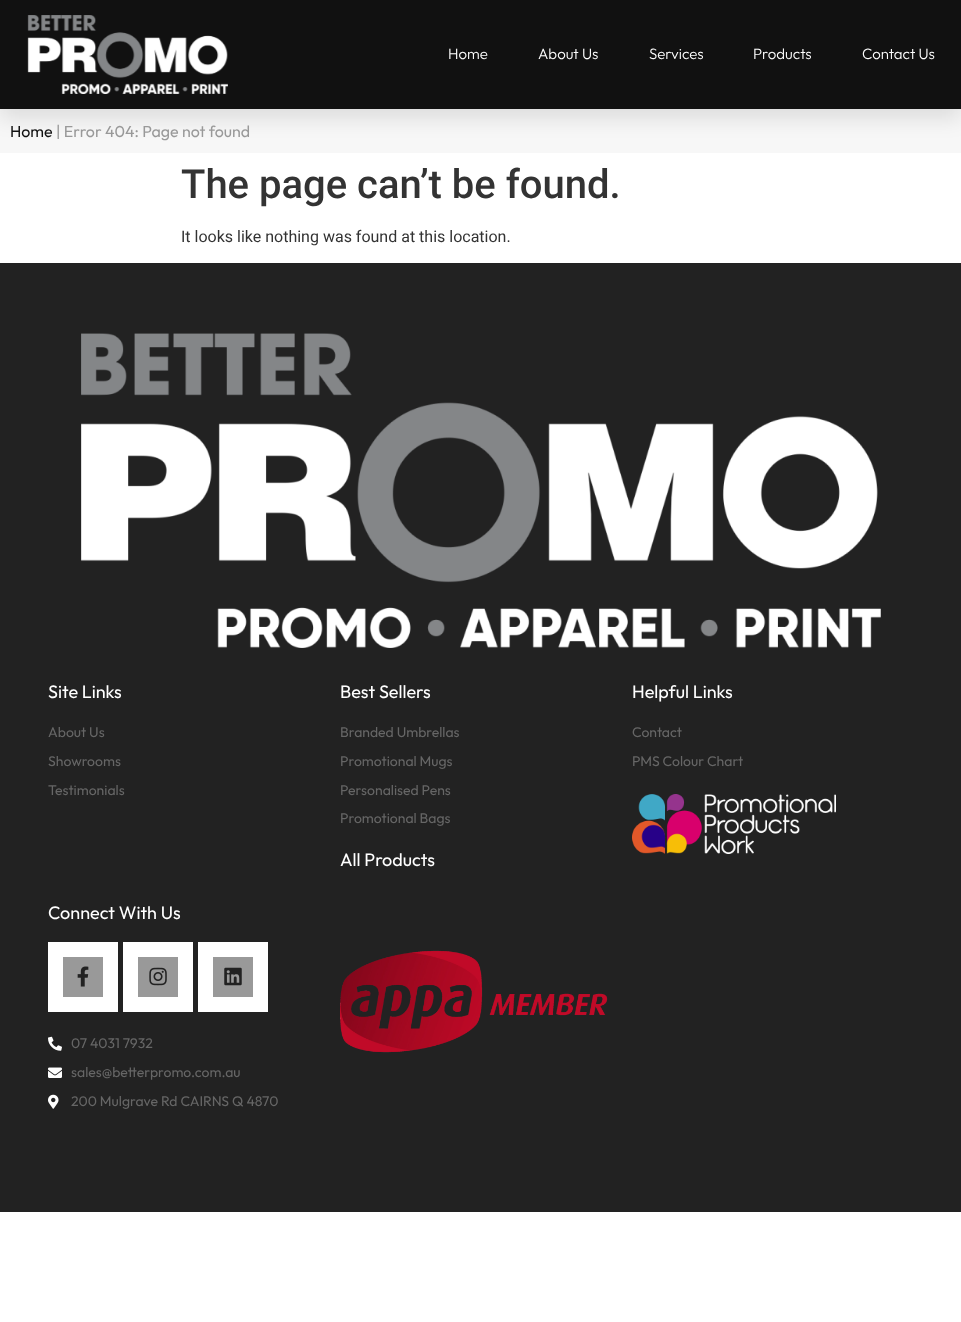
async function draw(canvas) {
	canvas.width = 961;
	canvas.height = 1322;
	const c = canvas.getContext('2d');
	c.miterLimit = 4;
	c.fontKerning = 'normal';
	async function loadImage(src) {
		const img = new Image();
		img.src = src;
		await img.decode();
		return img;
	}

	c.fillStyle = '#fff';
	c.fillRect(0, 0, 961, 1322);
	c.fillStyle = '#f7f7f7';
	c.fillRect(0, 109, 961, 44);
	c.fillStyle = '#0000001a';
	c.filter = 'blur(10px)';
	c.beginPath();
	c.rect(0, 10, 961, 109);
	c.fill();
	c.filter = 'none';
	c.fillStyle = '#111';
	c.fillRect(0, 0, 961, 109);
	c.drawImage(await loadImage('img1.png'), 27, 15, 201, 79);
	c.font = '300 15px Outfit';
	c.fillStyle = '#fff';
	for (const [text, x, y] of [
		['Home', 448, 59],
		['About Us', 538, 59],
		['Services', 649, 59],
		['Products', 753, 59],
		['Contact Us', 862, 59],
	]) {
		c.fillText(text, x, y);
	}
	c.font = '16px Outfit';
	c.fillStyle = '#111';
	c.fillText('Home', 10, 137);
	c.fillStyle = '#999';
	c.fillText('| Error 404: Page not found', 56, 137);
	c.font = '500 40px Roboto';
	c.fillStyle = '#333';
	c.fillText('The page can’t be found.', 181, 198);
	c.font = '16px Roboto';
	c.fillText('It looks like nothing was found at this location.', 181, 242);
	c.fillStyle = '#222';
	c.fillRect(0, 263, 961, 949);
	c.drawImage(await loadImage('img2.png'), 81, 333, 800, 315);
	c.font = '18px Outfit';
	c.fillStyle = '#fff';
	c.fillText('Site Links', 48, 698);
	c.font = '14px Outfit';
	c.fillStyle = '#666';
	for (const [text, x, y] of [
		['About Us', 48, 737],
		['Showrooms', 48, 766],
		['Testimonials', 48, 795],
	]) {
		c.fillText(text, x, y);
	}
	c.font = '18px Outfit';
	c.fillStyle = '#fff';
	c.fillText('Best Sellers', 340, 698);
	c.font = '14px Outfit';
	c.fillStyle = '#666';
	for (const [text, x, y] of [
		['Branded Umbrellas', 340, 737],
		['Promotional Mugs', 340, 766],
		['Personalised Pens', 340, 795],
		['Promotional Bags', 340, 823],
	]) {
		c.fillText(text, x, y);
	}
	c.font = '18px Outfit';
	c.fillStyle = '#fff';
	c.fillText('All Products', 340, 866);
	c.fillText('Helpful Links', 632, 698);
	c.font = '14px Outfit';
	c.fillStyle = '#666';
	c.fillText('Contact', 632, 737);
	c.fillText('PMS Colour Chart', 632, 766);
	c.drawImage(await loadImage('img3.png'), 632, 794, 204, 60);
	c.font = '18px Outfit';
	c.fillStyle = '#fff';
	c.fillText('Connect With Us', 48, 919);
	c.fillStyle = '#999';
	c.beginPath();
	c.rect(55.5, 949.5, 55, 55);
	c.fill();
	c.strokeStyle = '#fff';
	c.lineWidth = 15;
	c.stroke();
	c.drawImage(await loadImage('img4.png'), 77, 966, 12, 21);
	c.beginPath();
	c.rect(130.5, 949.5, 55, 55);
	c.fill();
	c.stroke();
	c.drawImage(await loadImage('img5.png'), 149, 967, 18, 19);
	c.beginPath();
	c.rect(205.5, 949.5, 55, 55);
	c.fill();
	c.stroke();
	c.drawImage(await loadImage('img6.png'), 224, 967, 18, 19);
	c.drawImage(await loadImage('img7.png'), 48, 1036, 14, 15);
	c.font = '14px Outfit';
	c.fillStyle = '#666';
	c.fillText('07 4031 7932', 71, 1048);
	c.drawImage(await loadImage('img8.png'), 48, 1067, 14, 11);
	c.fillText('sales@betterpromo.com.au', 71, 1077);
	c.drawImage(await loadImage('img9.png'), 48, 1094, 11, 15);
	c.fillText('200 Mulgrave Rd CAIRNS Q 4870', 71, 1106);
	c.drawImage(await loadImage('img10.png'), 340, 950, 268, 103);
}

draw(document.querySelector('canvas'));
